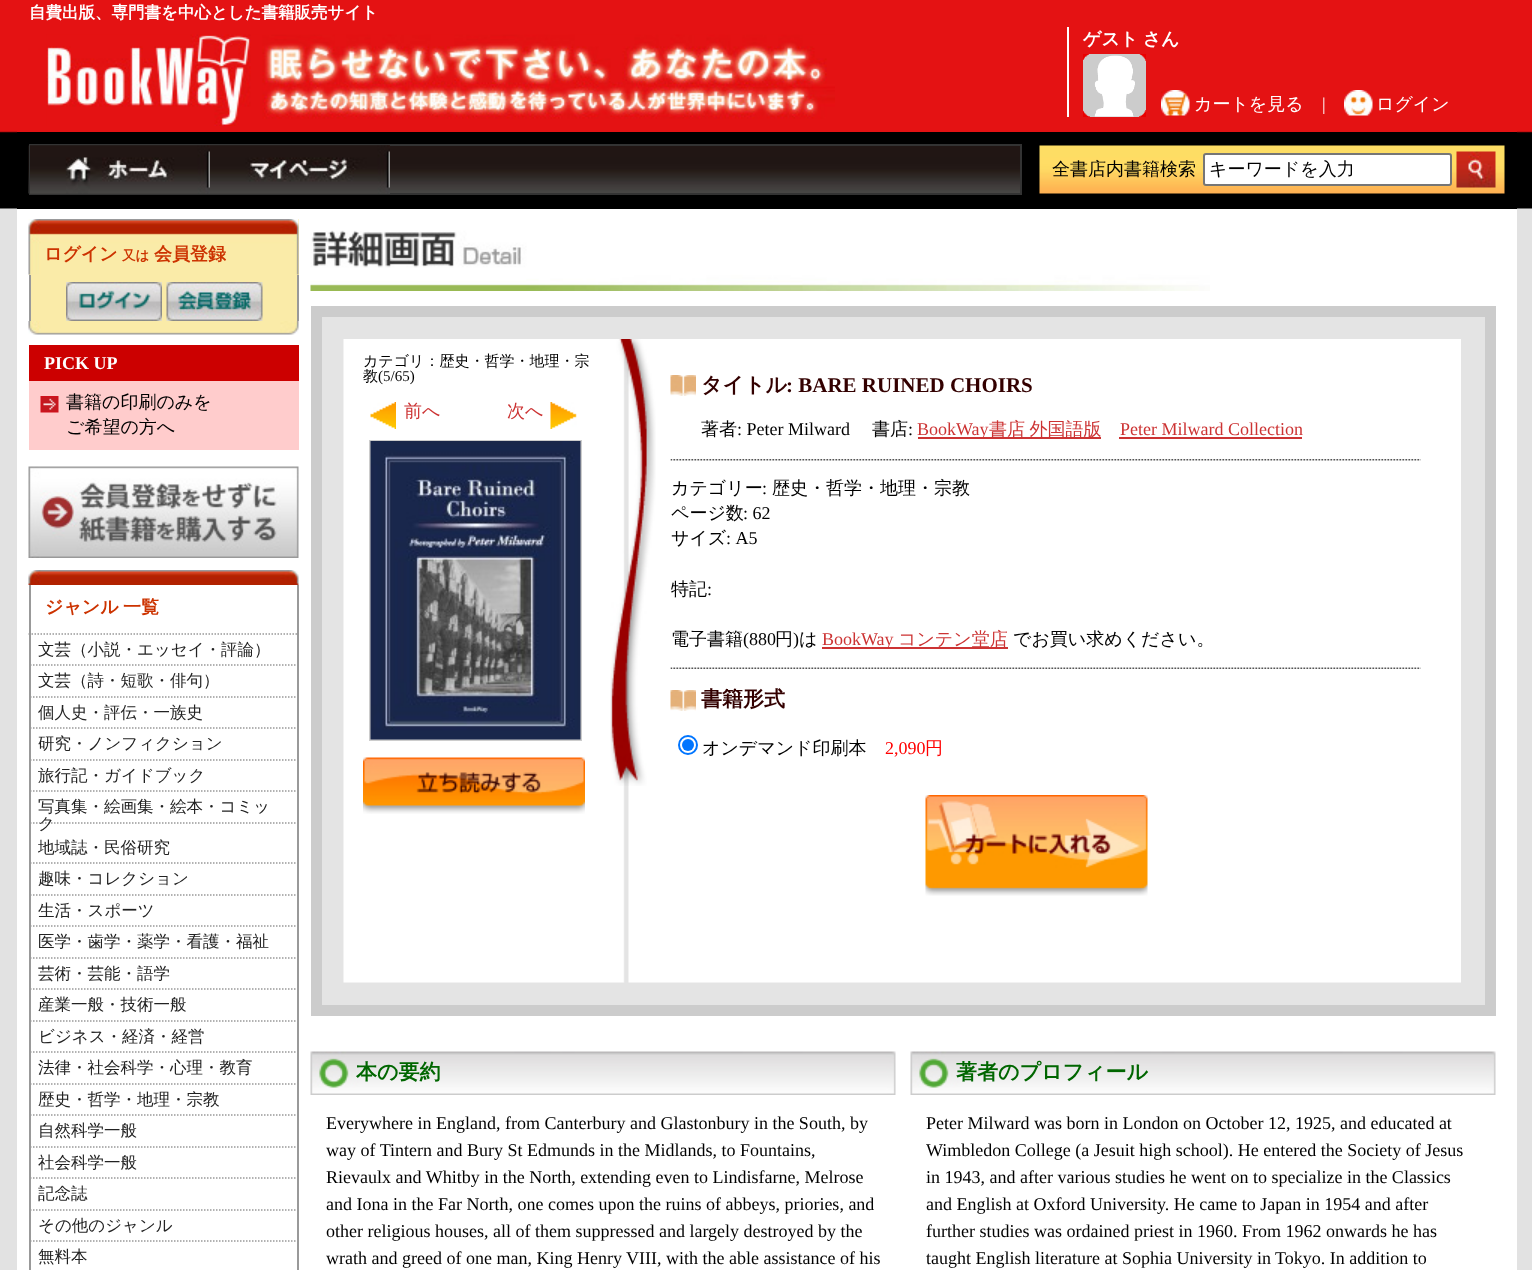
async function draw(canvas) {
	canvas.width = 1532;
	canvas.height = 1270;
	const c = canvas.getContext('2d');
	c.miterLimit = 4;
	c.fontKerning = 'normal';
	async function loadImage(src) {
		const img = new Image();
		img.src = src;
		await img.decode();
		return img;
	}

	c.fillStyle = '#e2e2e2';
	c.fillRect(0, 0, 1532, 1270);
	c.drawImage(await loadImage('img1.png'), 0, 0, 1532, 209);
	c.fillStyle = '#fff';
	c.fillRect(17, 209, 1500, 1061);
	c.fillStyle = '#e41213';
	c.fillRect(17, 131, 1500, 1);
	c.font = 'bold 16.5px WenQuanYi Zen Hei';
	c.fillStyle = '#fff';
	c.fillText('自費出版、専門書を中心とした書籍販売サイト', 29, 18);
	c.drawImage(await loadImage('img2.png'), 46, 34, 789, 92);
	c.fillRect(1067, 27, 2, 90);
	c.wordSpacing = '-1px';
	c.font = 'bold 18px WenQuanYi Zen Hei';
	c.fillText('ゲスト さん', 1083, 45);
	c.drawImage(await loadImage('img3.png'), 1083, 54, 63, 63);
	c.drawImage(await loadImage('img4.png'), 1161, 90, 29, 26);
	c.wordSpacing = '0px';
	c.font = '500 18px WenQuanYi Zen Hei';
	c.fillText('カートを見る', 1194, 110);
	c.font = '18px Liberation Serif';
	c.fillText('|', 1322, 110);
	c.drawImage(await loadImage('img5.png'), 1344, 90, 29, 26);
	c.font = '500 18px WenQuanYi Zen Hei';
	c.fillText('ログイン', 1376, 110);
	c.fillStyle = '#000';
	c.fillRect(17, 132, 1500, 77);
	c.drawImage(await loadImage('img6.png'), 28, 145, 992, 49);
	c.strokeStyle = '#333';
	c.lineWidth = 2;
	c.strokeRect(30, 145, 991, 49);
	c.drawImage(await loadImage('img7.png'), 30, 145, 180, 49);
	c.drawImage(await loadImage('img8.png'), 30, 145, 180, 49);
	c.drawImage(await loadImage('img9.png'), 210, 145, 180, 49);
	c.drawImage(await loadImage('img10.png'), 210, 145, 180, 49);
	c.drawImage(await loadImage('img11.png'), 1039, 145, 466, 49);
	c.fillText('全書店内書籍検索', 1052, 175);
	c.fillStyle = '#fff';
	c.beginPath();
	c.roundRect(1204, 154, 247, 31, 2);
	c.fill();
	c.strokeStyle = '#767676';
	c.stroke();
	c.fillStyle = '#000';
	c.fillText('キーワードを入力', 1209, 175);
	c.drawImage(await loadImage('img12.png'), 1456, 151, 40, 37);
	c.fillStyle = '#faeba8';
	c.fillRect(29, 219, 270, 102);
	c.drawImage(await loadImage('img13.png'), 28, 219, 271, 56);
	c.font = 'bold 18px WenQuanYi Zen Hei';
	c.fillStyle = '#c30';
	c.fillText('ログイン', 44, 260);
	c.font = 'bold 13.5px WenQuanYi Zen Hei';
	c.fillText('又は', 122, 260);
	c.font = 'bold 18px WenQuanYi Zen Hei';
	c.fillText('会員登録', 154, 260);
	c.fillStyle = '#999';
	c.fillRect(297, 275, 2, 46);
	c.fillRect(29, 275, 2, 46);
	c.drawImage(await loadImage('img14.png'), 66, 282, 96, 39);
	c.drawImage(await loadImage('img15.png'), 166, 282, 97, 39);
	c.drawImage(await loadImage('img16.png'), 28, 321, 271, 14);
	c.fillStyle = '#c00';
	c.fillRect(29, 345, 270, 36);
	c.font = 'bold 18px Liberation Serif';
	c.fillStyle = '#fff';
	c.fillText('PICK UP', 44, 369);
	c.fillStyle = '#fcc';
	c.fillRect(29, 381, 270, 69);
	c.drawImage(await loadImage('img17.png'), 40, 396, 19, 17);
	c.font = '500 18px WenQuanYi Zen Hei';
	c.fillStyle = '#000';
	c.fillText('書籍の印刷のみを', 66, 408);
	c.fillText('ご希望の方へ', 66, 433);
	c.drawImage(await loadImage('img18.png'), 28, 466, 271, 92);
	c.drawImage(await loadImage('img19.png'), 28, 570, 271, 15);
	c.fillStyle = '#999';
	c.fillRect(297, 585, 2, 685);
	c.beginPath();
	c.moveTo(28.5, 634);
	c.lineTo(298.5, 634);
	c.strokeStyle = '#999';
	c.lineWidth = 1.5;
	c.setLineDash([1.5, 1.5]);
	c.stroke();
	c.fillRect(29, 585, 2, 685);
	c.wordSpacing = '-1px';
	c.font = 'bold 18px WenQuanYi Zen Hei';
	c.fillStyle = '#c30';
	c.fillText('ジャンル 一覧', 45, 613);
	c.beginPath();
	c.moveTo(30, 665);
	c.lineTo(297, 665);
	c.stroke();
	c.wordSpacing = '0px';
	c.font = '500 16.5px WenQuanYi Zen Hei';
	c.fillStyle = '#222';
	c.fillText('文芸（小説・エッセイ・評論）', 38, 655);
	c.beginPath();
	c.moveTo(30, 697);
	c.lineTo(297, 697);
	c.stroke();
	c.fillText('文芸（詩・短歌・俳句）', 38, 686);
	c.beginPath();
	c.moveTo(30, 728);
	c.lineTo(297, 728);
	c.stroke();
	c.fillText('個人史・評伝・一族史', 38, 718);
	c.beginPath();
	c.moveTo(30, 760);
	c.lineTo(297, 760);
	c.stroke();
	c.fillText('研究・ノンフィクション', 38, 749);
	c.beginPath();
	c.moveTo(30, 791);
	c.lineTo(297, 791);
	c.stroke();
	c.fillText('旅行記・ガイドブック', 38, 781);
	c.beginPath();
	c.moveTo(30, 823);
	c.lineTo(297, 823);
	c.stroke();
	c.fillText('写真集・絵画集・絵本・コミッ', 38, 812);
	c.fillText('ク', 38, 829);
	c.beginPath();
	c.moveTo(30, 863);
	c.lineTo(297, 863);
	c.stroke();
	c.fillText('地域誌・民俗研究', 38, 853);
	c.beginPath();
	c.moveTo(30, 895);
	c.lineTo(297, 895);
	c.stroke();
	c.fillText('趣味・コレクション', 38, 884);
	c.beginPath();
	c.moveTo(30, 926);
	c.lineTo(297, 926);
	c.stroke();
	c.fillText('生活・スポーツ', 38, 916);
	c.beginPath();
	c.moveTo(30, 958);
	c.lineTo(297, 958);
	c.stroke();
	c.fillText('医学・歯学・薬学・看護・福祉', 38, 947);
	c.beginPath();
	c.moveTo(30, 989);
	c.lineTo(297, 989);
	c.stroke();
	c.fillText('芸術・芸能・語学', 38, 979);
	c.beginPath();
	c.moveTo(30, 1021);
	c.lineTo(297, 1021);
	c.stroke();
	c.fillText('産業一般・技術一般', 38, 1010);
	c.beginPath();
	c.moveTo(30, 1052);
	c.lineTo(297, 1052);
	c.stroke();
	c.fillText('ビジネス・経済・経営', 38, 1042);
	c.beginPath();
	c.moveTo(30, 1084);
	c.lineTo(297, 1084);
	c.stroke();
	c.fillText('法律・社会科学・心理・教育', 38, 1073);
	c.beginPath();
	c.moveTo(30, 1115);
	c.lineTo(297, 1115);
	c.stroke();
	c.fillText('歴史・哲学・地理・宗教', 38, 1105);
	c.beginPath();
	c.moveTo(30, 1147);
	c.lineTo(297, 1147);
	c.stroke();
	c.fillText('自然科学一般', 38, 1136);
	c.beginPath();
	c.moveTo(30, 1178);
	c.lineTo(297, 1178);
	c.stroke();
	c.fillText('社会科学一般', 38, 1168);
	c.beginPath();
	c.moveTo(30, 1210);
	c.lineTo(297, 1210);
	c.stroke();
	c.fillText('記念誌', 38, 1199);
	c.beginPath();
	c.moveTo(30, 1241);
	c.lineTo(297, 1241);
	c.stroke();
	c.fillText('その他のジャンル', 38, 1231);
	c.fillText('無料本', 38, 1262);
	c.drawImage(await loadImage('img20.png'), 310, 230, 900, 61);
	c.fillStyle = '#e4e4e4';
	c.beginPath();
	c.rect(316.5, 311.5, 1174, 699);
	c.fill();
	c.strokeStyle = '#ccc';
	c.lineWidth = 11;
	c.setLineDash([]);
	c.stroke();
	c.drawImage(await loadImage('img21.png'), 343, 339, 1118, 644);
	c.font = '500 15px WenQuanYi Zen Hei';
	c.fillStyle = '#000';
	c.fillText('カテゴリ：歴史・哲学・地理・宗', 363, 366);
	c.fillText('教', 363, 381);
	c.font = '15px Liberation Serif';
	c.fillText('(5/65)', 378, 381);
	c.drawImage(await loadImage('img22.png'), 370, 402, 26, 27);
	c.font = '500 18px WenQuanYi Zen Hei';
	c.fillStyle = '#c33';
	c.fillText('前へ', 404, 417);
	c.fillText('次へ', 507, 417);
	c.drawImage(await loadImage('img23.png'), 550, 402, 27, 27);
	c.lineWidth = 2;
	c.strokeRect(370, 441, 211, 299);
	c.drawImage(await loadImage('img24.png'), 370, 441, 211, 299);
	c.drawImage(await loadImage('img25.png'), 363, 757, 222, 57);
	c.drawImage(await loadImage('img26.png'), 610, 339, 46, 447);
	c.drawImage(await loadImage('img27.png'), 670, 375, 26, 21);
	c.font = 'bold 21px WenQuanYi Zen Hei';
	c.fillStyle = '#300';
	c.fillText('タイトル', 701, 392);
	c.font = 'bold 21px Liberation Serif';
	c.fillText(': BARE RUINED CHOIRS', 786, 392);
	c.font = '500 18px WenQuanYi Zen Hei';
	c.fillStyle = '#000';
	c.fillText('著者', 701, 435);
	c.font = '18px Liberation Serif';
	c.fillText(': Peter Milward', 737, 435);
	c.font = '500 18px WenQuanYi Zen Hei';
	c.fillText('書店', 872, 435);
	c.font = '18px Liberation Serif';
	c.fillText(':', 908, 435);
	c.fillStyle = '#c33';
	c.fillRect(918, 437, 183, 2);
	c.fillText('BookWay', 917, 435);
	c.wordSpacing = '-1px';
	c.font = '500 18px WenQuanYi Zen Hei';
	c.fillText('書店 外国語版', 989, 435);
	c.wordSpacing = '0px';
	c.font = '18px Liberation Serif';
	c.fillText('Peter Milward Collection', 1120, 435);
	c.fillRect(1119, 437, 183, 2);
	c.drawImage(await loadImage('img28.png'), 670, 459, 751, 2);
	c.font = '500 18px WenQuanYi Zen Hei';
	c.fillStyle = '#000';
	c.fillText('カテゴリー', 671, 494);
	c.font = '18px Liberation Serif';
	c.fillText(':', 762, 494);
	c.font = '500 18px WenQuanYi Zen Hei';
	c.fillText('歴史・哲学・地理・宗教', 772, 494);
	c.fillText('ページ数', 671, 519);
	c.font = '18px Liberation Serif';
	c.fillText(': 62', 743, 519);
	c.font = '500 18px WenQuanYi Zen Hei';
	c.fillText('サイズ', 671, 544);
	c.wordSpacing = '1px';
	c.font = '18px Liberation Serif';
	c.fillText(': A5', 726, 544);
	c.wordSpacing = '0px';
	c.font = '500 18px WenQuanYi Zen Hei';
	c.fillText('特記', 671, 595);
	c.font = '18px Liberation Serif';
	c.fillText(':', 707, 595);
	c.font = '500 18px WenQuanYi Zen Hei';
	c.fillText('電子書籍', 671, 645);
	c.font = '18px Liberation Serif';
	c.fillText('(880', 743, 645);
	c.font = '500 18px WenQuanYi Zen Hei';
	c.fillText('円', 775, 645);
	c.font = '18px Liberation Serif';
	c.fillText(')', 793, 645);
	c.font = '500 18px WenQuanYi Zen Hei';
	c.fillText('は', 799, 645);
	c.fillStyle = '#c33';
	c.fillRect(822, 647, 186, 2);
	c.font = '18px Liberation Serif';
	c.fillText('BookWay', 822, 645);
	c.font = '500 18px WenQuanYi Zen Hei';
	c.fillText('コンテン堂店', 898, 645);
	c.fillStyle = '#000';
	c.fillText('でお買い求めください。', 1013, 645);
	c.drawImage(await loadImage('img29.png'), 670, 667, 751, 2);
	c.drawImage(await loadImage('img27.png'), 670, 690, 26, 21);
	c.font = 'bold 21px WenQuanYi Zen Hei';
	c.fillStyle = '#300';
	c.fillText('書籍形式', 701, 706);
	c.beginPath();
	c.arc(688, 745, 9, 0, 2 * Math.PI);
	c.strokeStyle = '#0075ff';
	c.stroke();
	c.fillStyle = '#0075ff';
	c.beginPath();
	c.arc(688, 745, 6, 0, 2 * Math.PI);
	c.fill();
	c.font = '500 18px WenQuanYi Zen Hei';
	c.fillStyle = '#000';
	c.fillText('オンデマンド印刷本', 702, 754);
	c.font = '18px Liberation Serif';
	c.fillStyle = '#f00';
	c.fillText('2,090', 885, 754);
	c.font = '500 18px WenQuanYi Zen Hei';
	c.fillText('円', 925, 754);
	c.drawImage(await loadImage('img30.png'), 925, 795, 223, 101);
	c.drawImage(await loadImage('img31.png'), 310, 1051, 586, 44);
	c.font = 'bold 21px WenQuanYi Zen Hei';
	c.fillStyle = '#060';
	c.fillText('本の要約', 356, 1079);
	c.font = '18px Liberation Serif';
	c.fillStyle = '#000';
	for (const [text, x, y] of [
		['Everywhere in England, from Canterbury and Glastonbury in the South, by', 326, 1129],
		['way of Tintern and Bury St Edmunds in the Midlands, to Fountains,', 326, 1156],
		['Rievaulx and Whitby in the North, extending even to Lindisfarne, Melrose', 326, 1183],
		['and Iona in the Far North, one comes upon the ruins of abbeys, priories, and', 326, 1210],
		['other religious houses, all of them suppressed and largely destroyed by the', 326, 1237],
		['wrath and greed of one man, King Henry VIII, with the able assistance of his', 326, 1264],
	]) {
		c.fillText(text, x, y);
	}
	c.drawImage(await loadImage('img31.png'), 910, 1051, 586, 44);
	c.font = 'bold 21px WenQuanYi Zen Hei';
	c.fillStyle = '#060';
	c.fillText('著者のプロフィール', 956, 1079);
	c.font = '18px Liberation Serif';
	c.fillStyle = '#000';
	for (const [text, x, y] of [
		['Peter Milward was born in London on October 12, 1925, and educated at', 926, 1129],
		['Wimbledon College (a Jesuit high school). He entered the Society of Jesus', 926, 1156],
		['in 1943, and after various studies he went on to specialize in the Classics', 926, 1183],
		['and English at Oxford University. He came to Japan in 1954 and after', 926, 1210],
		['further studies was ordained priest in 1960. From 1962 onwards he has', 926, 1237],
		['taught English literature at Sophia University in Tokyo. In addition to', 926, 1264],
	]) {
		c.fillText(text, x, y);
	}
}

draw(document.querySelector('canvas'));
